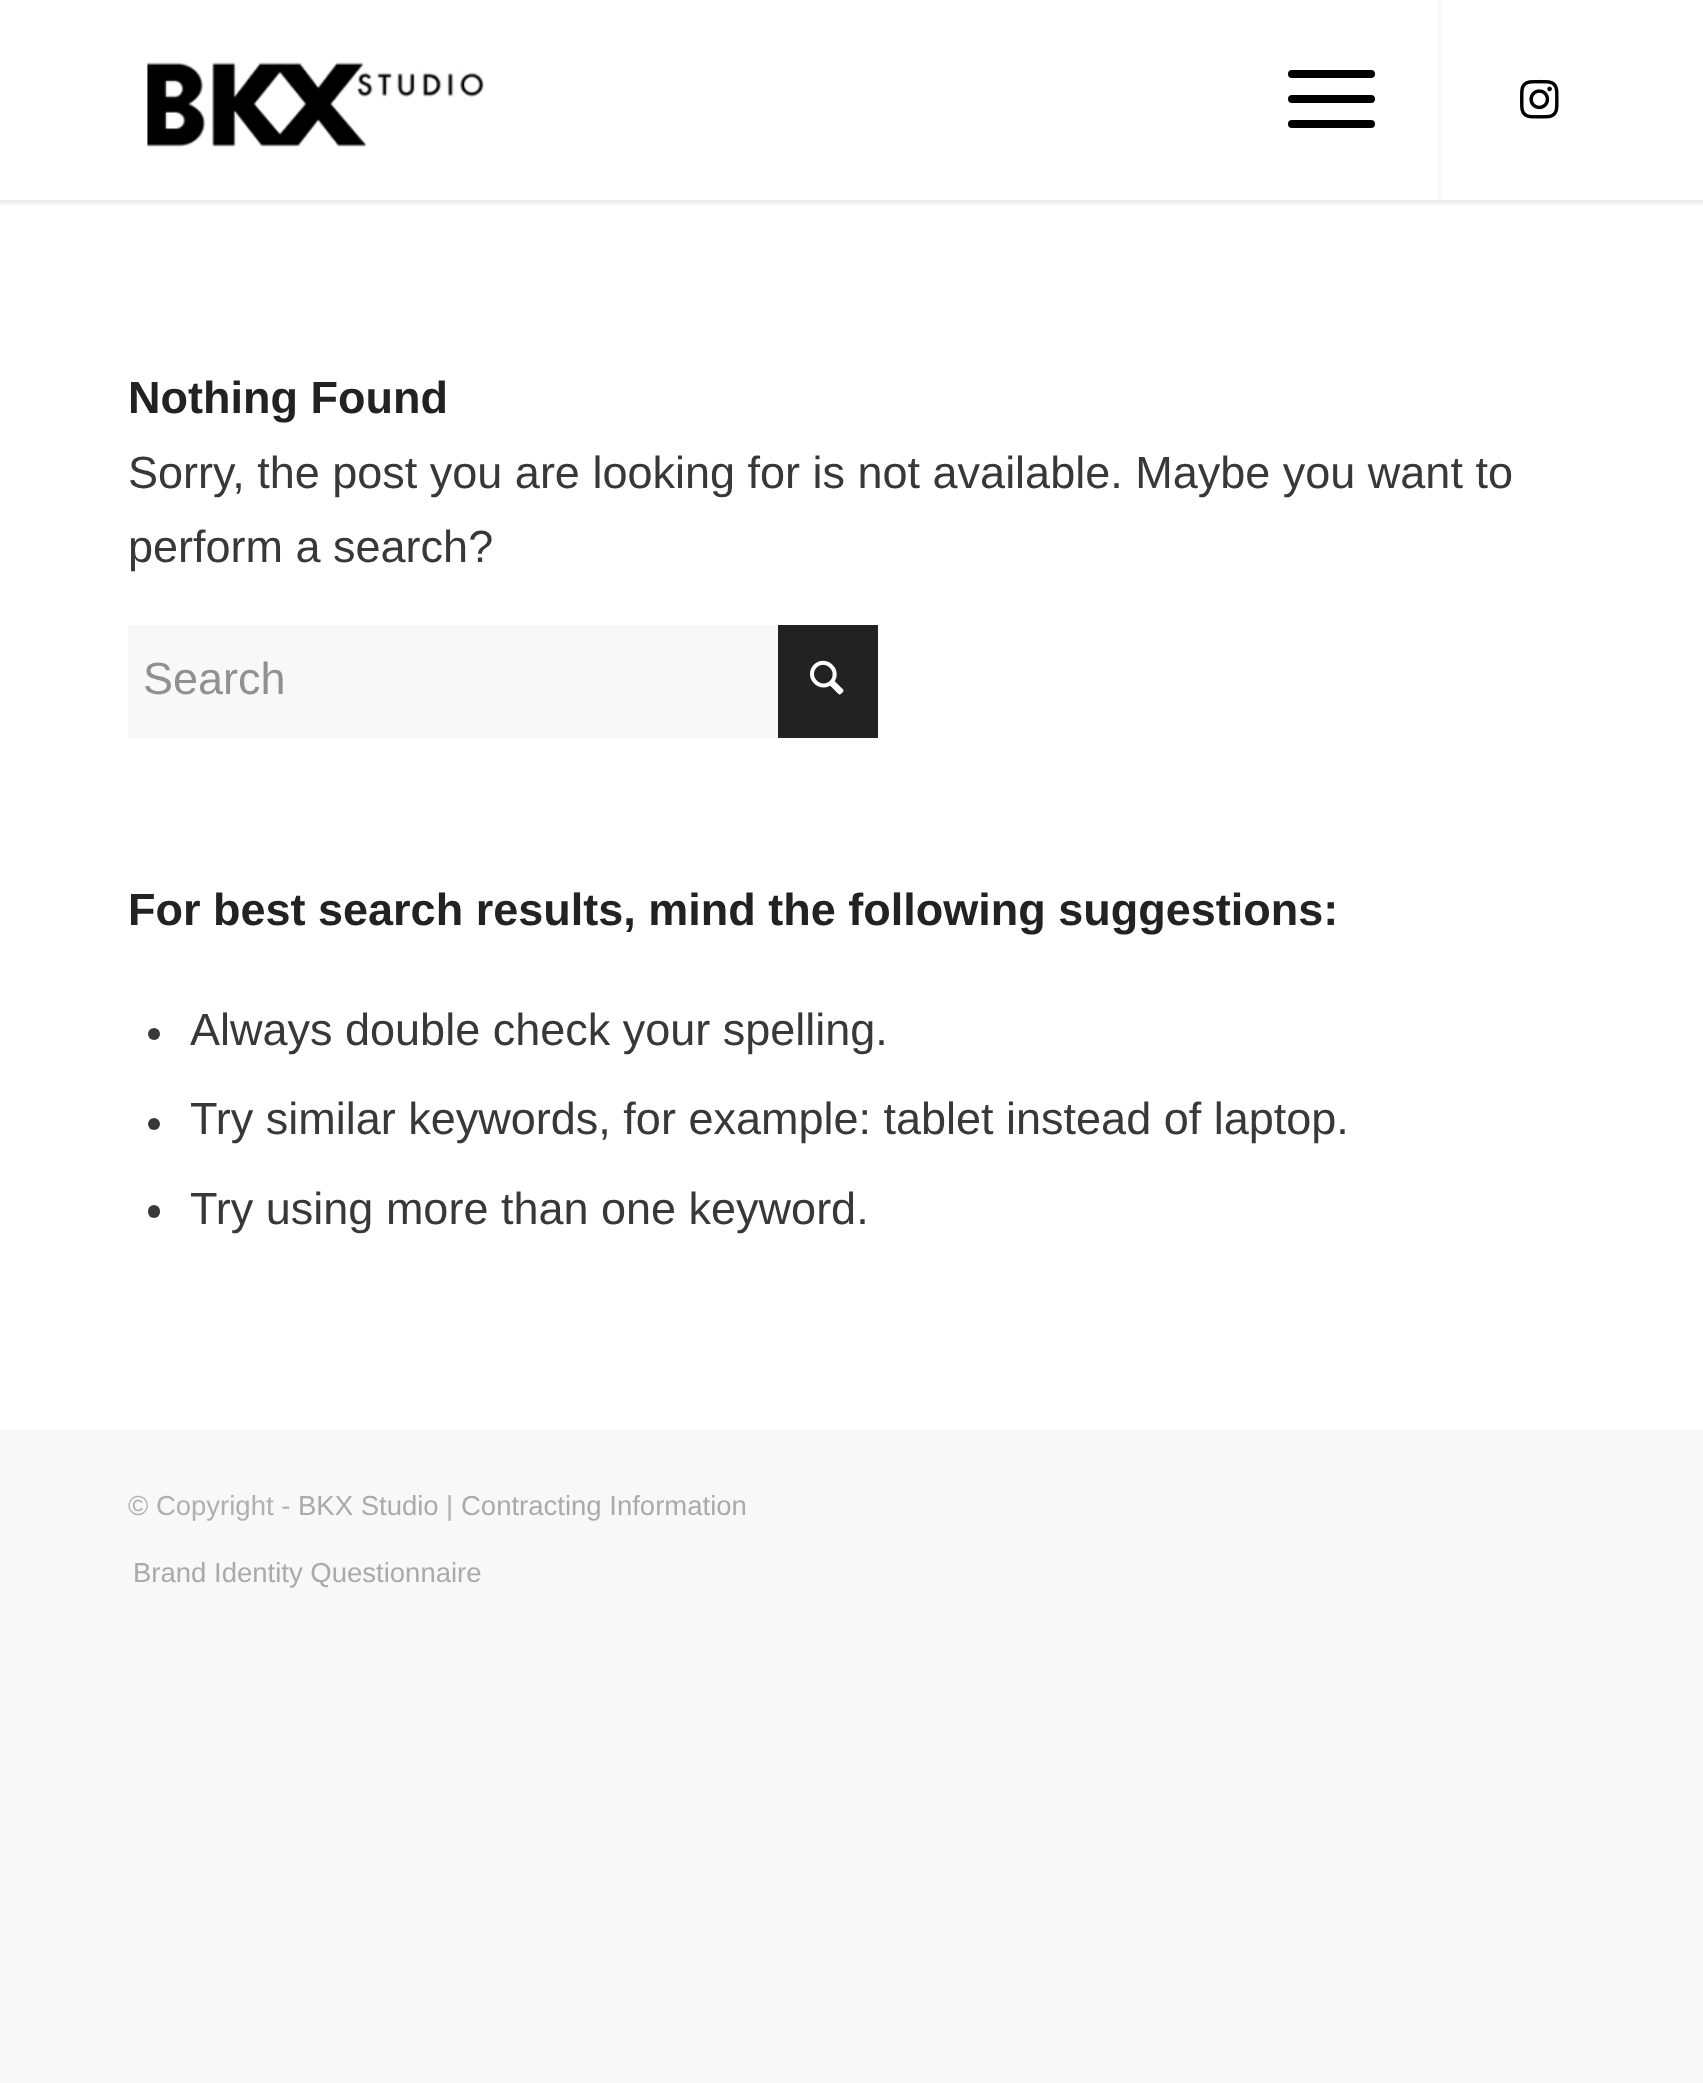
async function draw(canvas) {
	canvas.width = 1703;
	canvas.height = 2083;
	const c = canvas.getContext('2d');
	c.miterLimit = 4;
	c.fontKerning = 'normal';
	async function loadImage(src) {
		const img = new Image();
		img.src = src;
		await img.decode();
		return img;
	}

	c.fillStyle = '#f8f8f8';
	c.fillRect(0, 0, 1703, 2083);
	c.fillStyle = '#fff';
	c.fillRect(0, 0, 1703, 1430);
	c.save();
	c.beginPath();
	c.rect(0, 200, 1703, 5);
	c.clip();
	c.fillStyle = '#0000001a';
	c.filter = 'blur(2.5px)';
	c.beginPath();
	c.rect(-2, -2, 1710, 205);
	c.fill();
	c.filter = 'none';
	c.restore();
	c.drawImage(await loadImage('img1.png'), 147, 62, 337, 86);
	c.fillStyle = '#f8f8f8';
	c.fillRect(1438, 0, 3, 200);
	c.fillStyle = '#000';
	c.beginPath();
	c.roundRect(1288, 95, 87, 8, 4);
	c.fill();
	c.beginPath();
	c.roundRect(1288, 70, 87, 8, 4);
	c.fill();
	c.beginPath();
	c.roundRect(1288, 120, 87, 8, 4);
	c.fill();
	c.drawImage(await loadImage('img2.png'), 1520, 79, 39, 40);
	c.font = 'bold 45px Liberation Sans';
	c.fillStyle = '#222';
	c.fillText('Nothing Found', 128, 413);
	c.font = '45px Liberation Sans';
	c.fillStyle = '#383838';
	c.fillText('Sorry, the post you are looking for is not available. Maybe you want to', 128, 488);
	c.fillText('perform a search?', 128, 562);
	c.fillStyle = '#f8f8f8';
	c.fillRect(128, 625, 650, 113);
	c.fillStyle = '#919191';
	c.fillText('Search', 143, 694);
	c.fillStyle = '#222';
	c.fillRect(778, 625, 100, 113);
	c.drawImage(await loadImage('img3.png'), 810, 660, 34, 35);
	c.font = 'bold 45px Liberation Sans';
	c.fillText('For best search results, mind the following suggestions:', 128, 925);
	c.fillStyle = '#383838';
	c.beginPath();
	c.arc(154, 1034, 6, 0, 2 * Math.PI);
	c.fill();
	c.font = '45px Liberation Sans';
	c.fillText('Always double check your spelling.', 190, 1045);
	c.beginPath();
	c.arc(154, 1124, 6, 0, 2 * Math.PI);
	c.fill();
	c.fillText('Try similar keywords, for example: tablet instead of laptop.', 190, 1134);
	c.beginPath();
	c.roundRect(148, 1205, 12, 13, 6);
	c.fill();
	c.fillText('Try using more than one keyword.', 190, 1224);
	c.font = '27.5px Liberation Sans';
	c.fillStyle = '#b0b0b0';
	c.fillText('© Copyright -', 128, 1515);
	c.fillStyle = '#aaa';
	c.fillText('BKX Studio', 298, 1515);
	c.fillStyle = '#b0b0b0';
	c.fillText('|', 446, 1515);
	c.fillStyle = '#aaa';
	c.fillText('Contracting Information', 461, 1515);
	c.fillText('Brand Identity Questionnaire', 133, 1582);
}

draw(document.querySelector('canvas'));
